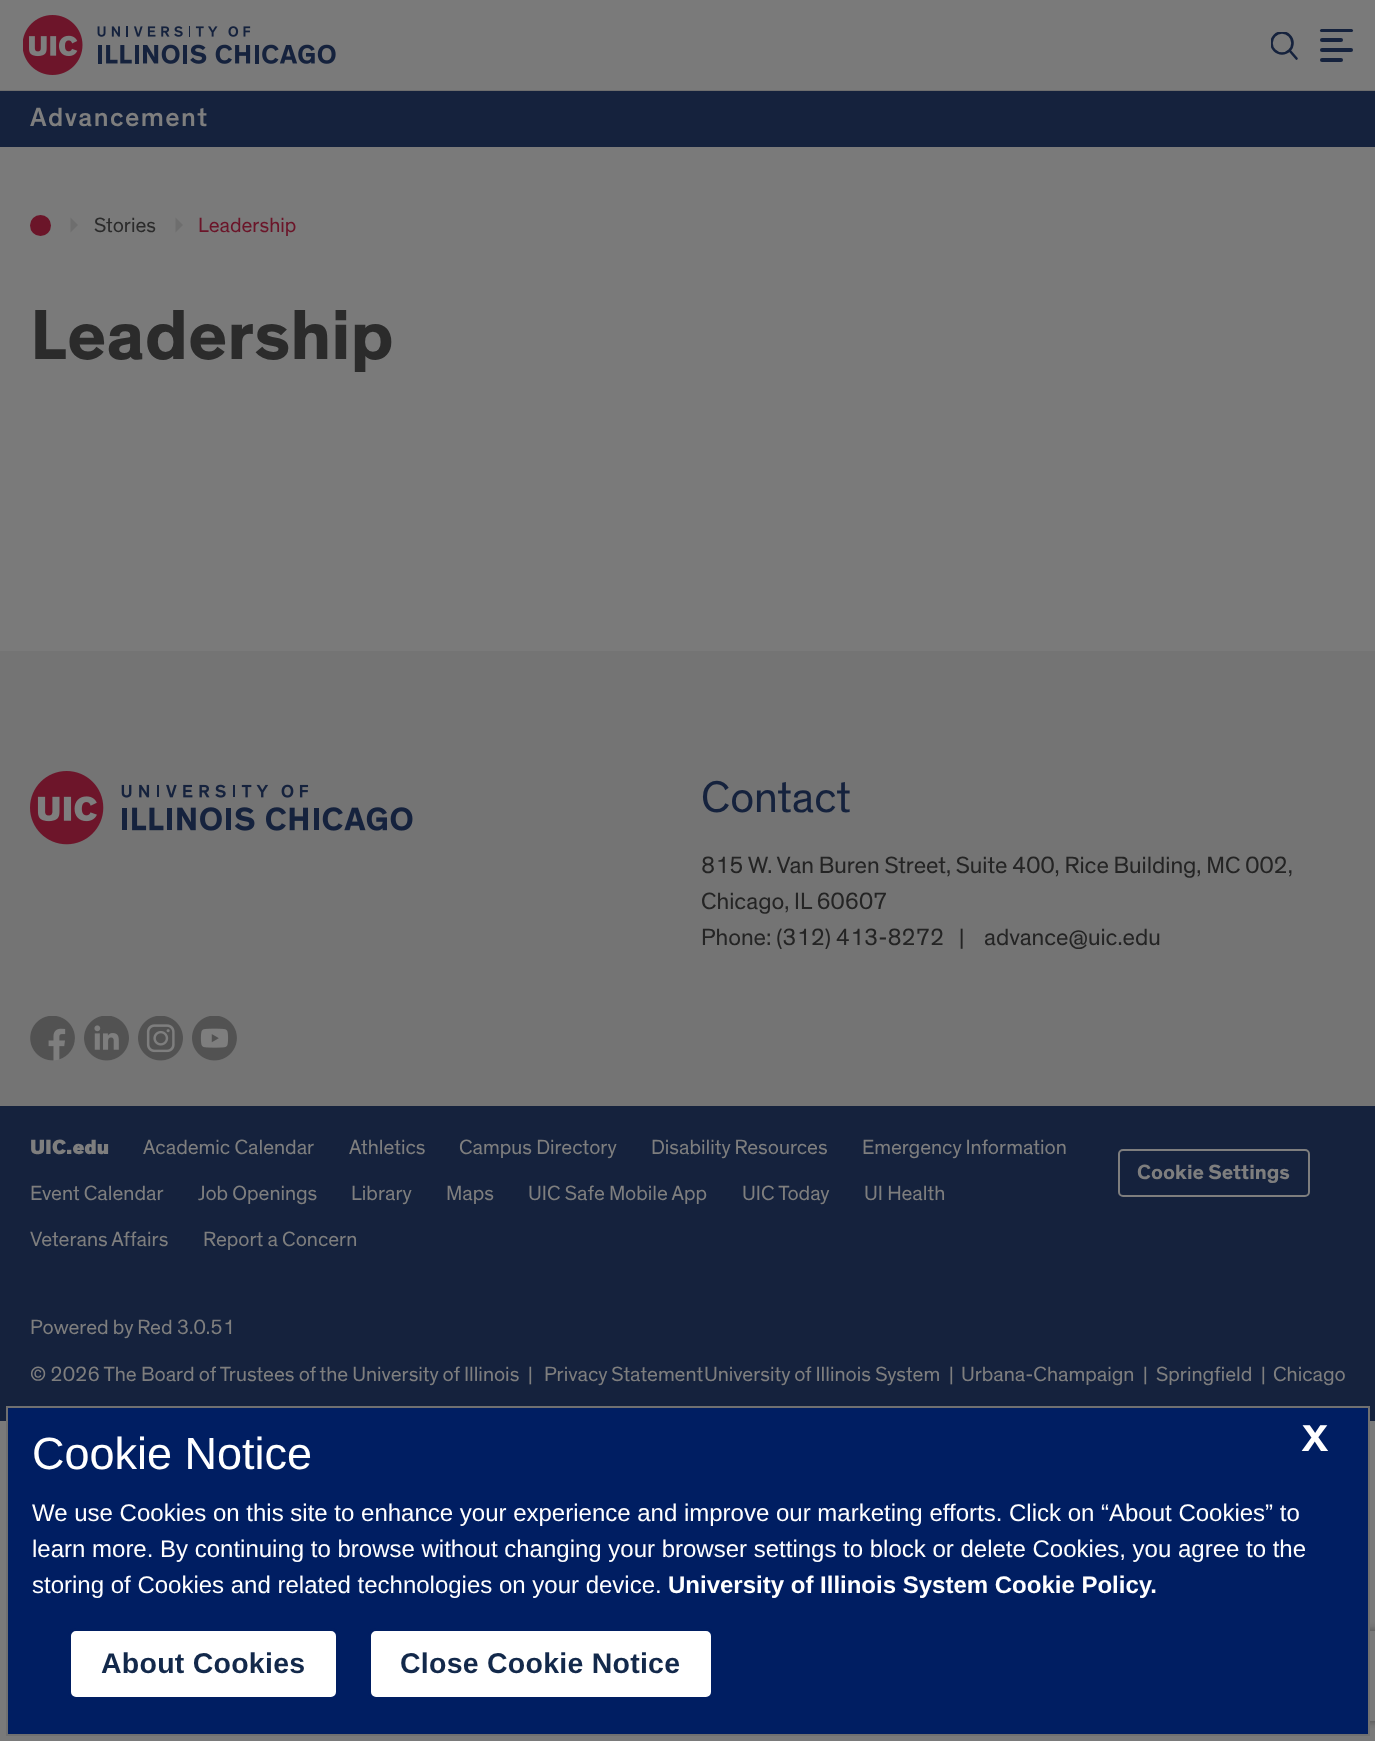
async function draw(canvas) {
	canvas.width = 1375;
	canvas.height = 1741;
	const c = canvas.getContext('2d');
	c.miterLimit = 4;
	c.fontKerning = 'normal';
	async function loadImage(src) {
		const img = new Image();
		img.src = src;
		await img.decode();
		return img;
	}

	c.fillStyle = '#7a7a7a';
	c.fillRect(0, 0, 1375, 1741);
	c.drawImage(await loadImage('img1.png'), 23, 15, 313, 60);
	c.save();
	c.beginPath();
	c.rect(1271, 32, 28, 28);
	c.clip();
	c.beginPath();
	c.arc(1282, 43, 10.5, 0, 2 * Math.PI);
	c.strokeStyle = '#15223d';
	c.lineWidth = 2.6;
	c.stroke();
	c.restore();
	c.beginPath();
	c.moveTo(1296.5, 58.5);
	c.lineTo(1290, 51);
	c.strokeStyle = '#15223d';
	c.lineWidth = 2.6;
	c.lineCap = 'round';
	c.stroke();
	c.fillStyle = '#15223d';
	c.beginPath();
	c.roundRect(1320, 29, 33, 3, 1.5);
	c.fill();
	c.beginPath();
	c.roundRect(1320, 58, 23, 4, 2);
	c.fill();
	c.beginPath();
	c.roundRect(1320, 48, 33, 4, 2);
	c.fill();
	c.beginPath();
	c.roundRect(1320, 38, 23, 4, 2);
	c.fill();
	c.fillStyle = '#6e6e6e';
	c.fillRect(0, 90, 1375, 1);
	c.fillStyle = '#15223d';
	c.fillRect(0, 91, 1375, 56);
	c.letterSpacing = '1.5px';
	c.font = '500 27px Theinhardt';
	c.fillStyle = '#7e7e7e';
	c.fillText('Advancement', 30, 126);
	c.fillStyle = '#6b1529';
	c.beginPath();
	c.arc(40.5, 225.5, 10.5, 0, 2 * Math.PI);
	c.fill();
	c.fillStyle = '#6e6e6e';
	c.beginPath();
	c.moveTo(70.5, 232.5);
	c.lineTo(70.5, 217.5);
	c.lineTo(78, 225);
	c.closePath();
	c.fill();
	c.letterSpacing = '0px';
	c.font = '21px Theinhardt';
	c.fillStyle = '#2b2b2b';
	c.fillText('Stories', 94, 232);
	c.fillStyle = '#6e6e6e';
	c.beginPath();
	c.moveTo(175.5, 232.5);
	c.lineTo(175.5, 217.5);
	c.lineTo(183, 225);
	c.closePath();
	c.fill();
	c.fillStyle = '#6b1529';
	c.fillText('Leadership', 198, 232);
	c.font = 'bold 72px Theinhardt';
	c.fillStyle = '#2b2b2b';
	c.fillText('Leadership', 30, 359);
	c.fillStyle = '#747474';
	c.fillRect(0, 651, 1375, 455);
	c.drawImage(await loadImage('img2.png'), 30, 771, 383, 74);
	c.font = '45px Theinhardt';
	c.fillStyle = '#15223d';
	c.fillText('Contact', 701, 812);
	c.font = '24px Theinhardt';
	c.fillStyle = '#242424';
	for (const [text, x, y] of [
		['815 W. Van Buren Street, Suite 400, Rice Building, MC 002,', 701, 873],
		['Chicago, IL 60607', 701, 909],
		['Phone: (312) 413-8272', 701, 945],
		['|', 959, 945],
		['advance@uic.edu', 984, 945],
	]) {
		c.fillText(text, x, y);
	}
	c.drawImage(await loadImage('img3.png'), 30, 1016, 45, 45);
	c.drawImage(await loadImage('img4.png'), 84, 1016, 45, 45);
	c.drawImage(await loadImage('img5.png'), 138, 1016, 45, 45);
	c.drawImage(await loadImage('img6.png'), 192, 1016, 45, 45);
	c.fillStyle = '#15223d';
	c.fillRect(0, 1106, 1375, 315);
	c.font = '900 21px Theinhardt';
	c.fillStyle = '#7e7e7e';
	c.fillText('UIC.edu', 30, 1154);
	c.font = '21px Theinhardt';
	for (const [text, x, y] of [
		['Academic Calendar', 143, 1154],
		['Athletics', 349, 1154],
		['Campus Directory', 459, 1154],
		['Disability Resources', 651, 1154],
		['Emergency Information', 862, 1154],
		['Event Calendar', 30, 1200],
		['Job Openings', 198, 1200],
		['Library', 351, 1200],
		['Maps', 446, 1200],
		['UIC Safe Mobile App', 528, 1200],
		['UIC Today', 742, 1200],
		['UI Health', 864, 1200],
		['Veterans Affairs', 30, 1246],
		['Report a Concern', 203, 1246],
	]) {
		c.fillText(text, x, y);
	}
	c.beginPath();
	c.roundRect(1119, 1150, 190, 46, 4);
	c.strokeStyle = '#7e7e7e';
	c.lineWidth = 2;
	c.stroke();
	c.font = 'bold 21px Theinhardt';
	c.fillText('Cookie Settings', 1137, 1179);
	c.font = '21px Theinhardt';
	for (const [text, x, y] of [
		['Powered by Red 3.0.51', 30, 1334],
		['© 2026 The Board of Trustees of the University of Illinois', 30, 1381],
		['|', 528, 1381],
		['Privacy Statement', 544, 1381],
		['University of Illinois System', 704, 1381],
		['|', 949, 1381],
		['Urbana-Champaign', 961, 1381],
		['|', 1143, 1381],
		['Springfield', 1156, 1381],
		['|', 1261, 1381],
		['Chicago', 1273, 1381],
	]) {
		c.fillText(text, x, y);
	}
	c.save();
	c.beginPath();
	c.moveTo(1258, 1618);
	c.lineTo(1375, 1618);
	c.lineTo(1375, 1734);
	c.lineTo(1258, 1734);
	c.closePath();
	c.moveTo(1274, 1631);
	c.lineTo(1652, 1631);
	c.bezierCurveTo(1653.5, 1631, 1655, 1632.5, 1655, 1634);
	c.lineTo(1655, 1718);
	c.bezierCurveTo(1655, 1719.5, 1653.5, 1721, 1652, 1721);
	c.lineTo(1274, 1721);
	c.bezierCurveTo(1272.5, 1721, 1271, 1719.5, 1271, 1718);
	c.lineTo(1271, 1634);
	c.bezierCurveTo(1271, 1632.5, 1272.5, 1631, 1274, 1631);
	c.closePath();
	c.clip('evenodd');
	c.fillStyle = '#4a4a4a';
	c.filter = 'blur(4px)';
	c.beginPath();
	c.roundRect(1271, 1631, 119, 90, 3);
	c.fill();
	c.filter = 'none';
	c.restore();
	c.fillStyle = '#001e62';
	c.beginPath();
	c.rect(7, 1407, 1362, 328);
	c.fill();
	c.strokeStyle = '#707070';
	c.stroke();
	c.font = '45px Liberation Sans';
	c.fillStyle = '#fff';
	c.fillText('Cookie Notice', 32, 1469);
	c.font = 'bold 38px Theinhardt';
	c.fillText('X', 1302, 1451);
	c.font = '24px Liberation Sans';
	for (const [text, x, y] of [
		['We use Cookies on this site to enhance your experience and improve our marketing efforts. Click on “About Cookies” to', 32, 1521],
		['learn more. By continuing to browse without changing your browser settings to block or delete Cookies, you agree to the', 32, 1557],
		['storing of Cookies and related technologies on your device.', 32, 1593],
	]) {
		c.fillText(text, x, y);
	}
	c.font = 'bold 24px Liberation Sans';
	c.fillText('University of Illinois System Cookie Policy.', 668, 1593);
	c.beginPath();
	c.roundRect(69.5, 1629.5, 268, 69, 6.5);
	c.fill();
	c.strokeStyle = '#001e62';
	c.lineWidth = 3;
	c.stroke();
	c.letterSpacing = '0.25px';
	c.font = 'bold 28.5px Liberation Sans';
	c.fillStyle = '#13294b';
	c.fillText('About Cookies', 101, 1673);
	c.fillStyle = '#fff';
	c.beginPath();
	c.roundRect(369.5, 1629.5, 343, 69, 6.5);
	c.fill();
	c.stroke();
	c.fillStyle = '#13294b';
	c.fillText('Close Cookie Notice', 400, 1673);
}

draw(document.querySelector('canvas'));
